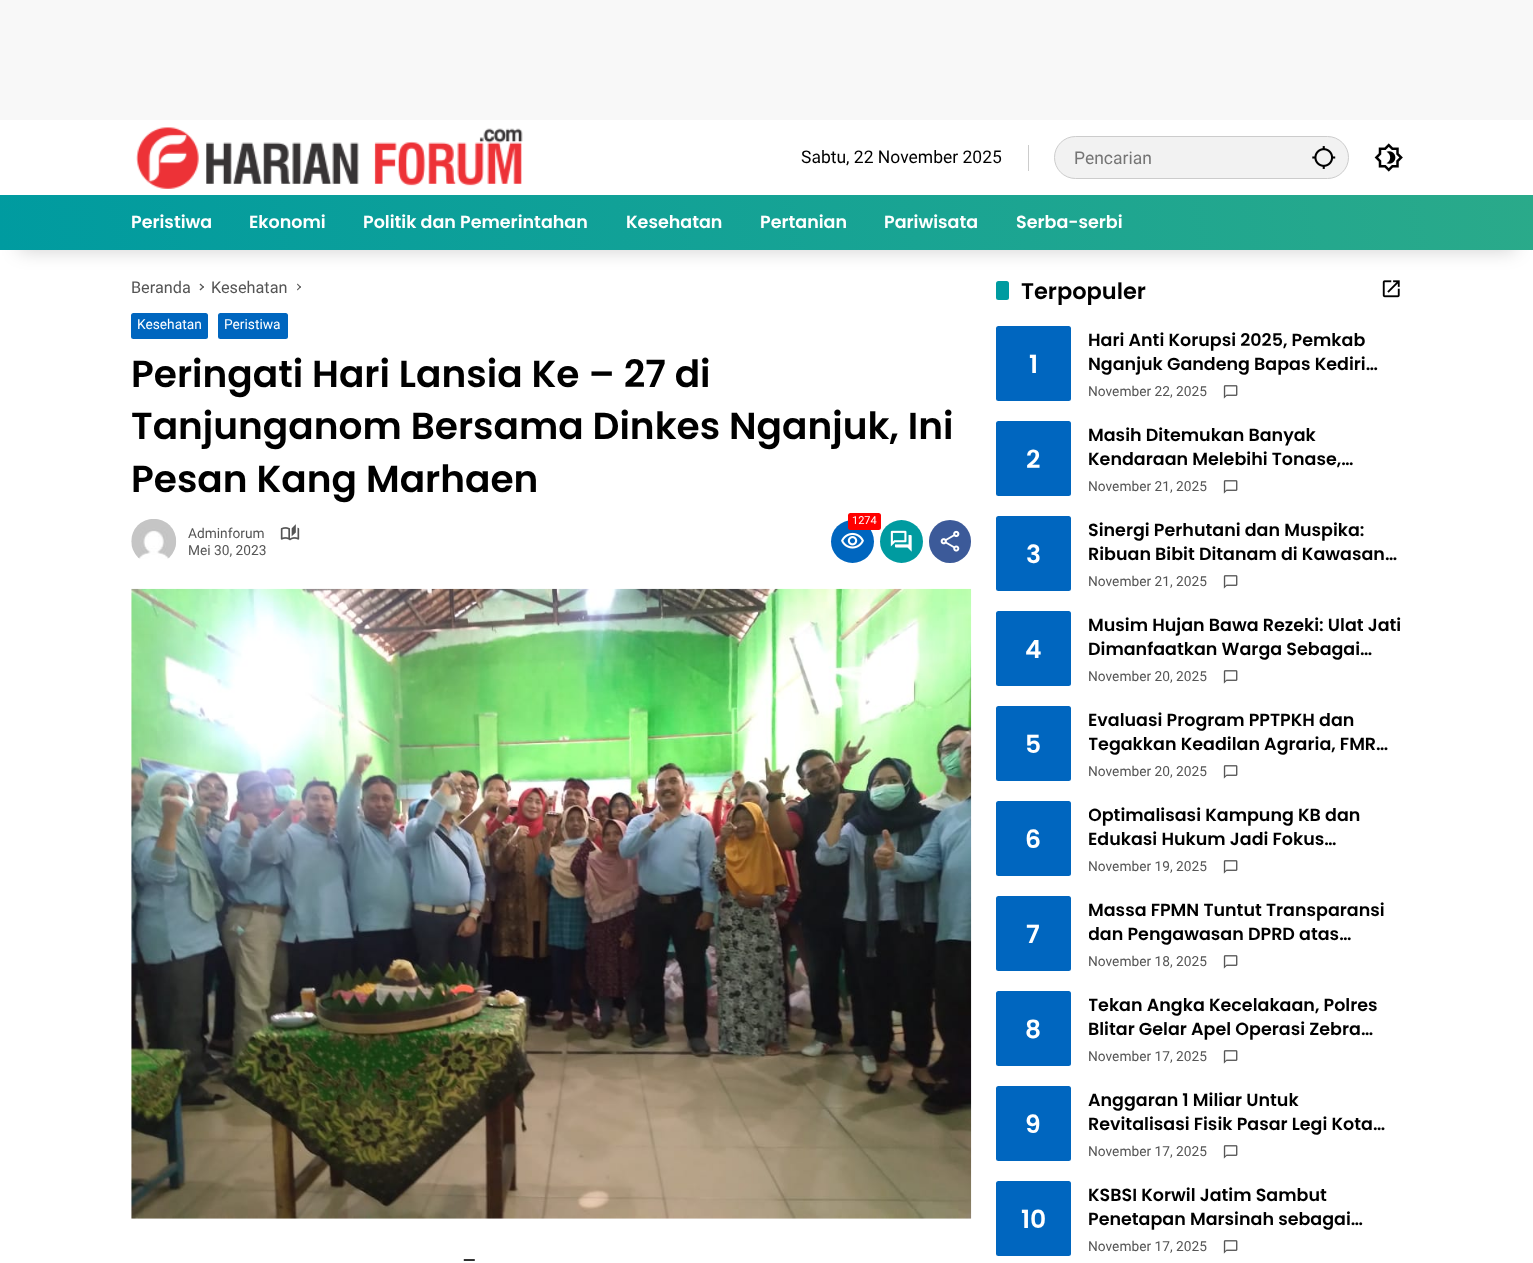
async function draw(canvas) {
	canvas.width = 1533;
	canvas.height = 1263;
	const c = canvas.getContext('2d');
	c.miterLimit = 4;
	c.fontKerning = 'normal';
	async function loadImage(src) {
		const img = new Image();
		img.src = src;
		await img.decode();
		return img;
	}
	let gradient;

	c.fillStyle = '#f8f8f8';
	c.fillRect(0, 0, 1533, 1263);
	c.fillStyle = '#fff';
	c.fillRect(0, 120, 1533, 1143);
	c.drawImage(await loadImage('img1.png'), 136, 127, 387, 62);
	c.fillStyle = '#ccc';
	c.fillRect(1028, 145, 1, 26);
	c.font = '17.5px Roboto';
	c.fillStyle = '#000';
	c.fillText('Sabtu, 22 November 2025', 801, 163);
	c.fillStyle = '#f2f2f2';
	c.beginPath();
	c.roundRect(1054.5, 136.5, 294, 42, 21);
	c.fill();
	c.strokeStyle = '#ccc';
	c.stroke();
	c.fillStyle = '#757575';
	c.fillText('Pencarian', 1074, 164);
	c.drawImage(await loadImage('img2.png'), 1312, 146, 24, 23);
	c.drawImage(await loadImage('img3.png'), 1374, 143, 29, 29);
	c.fillStyle = '#00000033';
	c.filter = 'blur(9.5px)';
	c.beginPath();
	c.rect(19, 233, 1496, 17);
	c.fill();
	c.filter = 'none';
	gradient = c.createLinearGradient(18, 354, 1515, 91);
	gradient.addColorStop(0, '#009ba0');
	gradient.addColorStop(1, '#2aaa8a');
	c.fillStyle = gradient;
	c.fillRect(0, 195, 1533, 55);
	c.font = '600 17.5px Poppins';
	c.fillStyle = '#fff';
	for (const [text, x, y] of [
		['Peristiwa', 131, 228],
		['Ekonomi', 249, 228],
		['Politik dan Pemerintahan', 363, 228],
		['Kesehatan', 626, 228],
		['Pertanian', 760, 228],
		['Pariwisata', 884, 228],
		['Serba-serbi', 1016, 228],
	]) {
		c.fillText(text, x, y);
	}
	c.font = '16.25px Roboto';
	c.fillStyle = '#555';
	c.fillText('Beranda', 131, 293);
	c.beginPath();
	c.moveTo(199.5, 284.5);
	c.lineTo(200.5, 283.5);
	c.lineTo(204, 287);
	c.lineTo(203.5, 288);
	c.closePath();
	c.fill();
	c.beginPath();
	c.moveTo(199.5, 289.5);
	c.lineTo(203.5, 286);
	c.lineTo(204, 287);
	c.lineTo(200.5, 290.5);
	c.closePath();
	c.fill();
	c.fillText('Kesehatan', 211, 293);
	c.beginPath();
	c.moveTo(297, 284.5);
	c.lineTo(297.5, 283.5);
	c.lineTo(301, 287);
	c.lineTo(300.5, 288);
	c.closePath();
	c.fill();
	c.beginPath();
	c.moveTo(297, 289.5);
	c.lineTo(300.5, 286);
	c.lineTo(301, 287);
	c.lineTo(297.5, 290.5);
	c.closePath();
	c.fill();
	c.fillStyle = '#0066bf';
	c.beginPath();
	c.roundRect(131, 313, 77, 26, 2.5);
	c.fill();
	c.font = '13.75px Roboto';
	c.fillStyle = '#fff';
	c.fillText('Kesehatan', 137, 329);
	c.fillStyle = '#0066bf';
	c.beginPath();
	c.roundRect(218, 313, 70, 26, 2.5);
	c.fill();
	c.fillStyle = '#fff';
	c.fillText('Peristiwa', 224, 329);
	c.font = '600 37.5px Poppins';
	c.fillStyle = '#000';
	for (const [text, x, y] of [
		['Peringati Hari Lansia Ke – 27 di', 131, 387],
		['Tanjunganom Bersama Dinkes Nganjuk, Ini', 131, 439],
		['Pesan Kang Marhaen', 131, 492],
	]) {
		c.fillText(text, x, y);
	}
	c.drawImage(await loadImage('img4.png'), 131, 519, 46, 40);
	c.font = '13.75px Roboto';
	c.fillStyle = '#555';
	c.fillText('Adminforum', 188, 538);
	c.drawImage(await loadImage('img5.png'), 280, 524, 20, 17);
	c.fillText('Mei 30, 2023', 188, 555);
	c.fillStyle = '#0066bf';
	c.beginPath();
	c.arc(852.5, 541.5, 21.5, 0, 2 * Math.PI);
	c.fill();
	c.fillStyle = '#f00';
	c.beginPath();
	c.roundRect(848, 513, 33, 17, 2.5);
	c.fill();
	c.font = '11px Roboto';
	c.fillStyle = '#fff';
	c.fillText('1274', 852, 524);
	c.drawImage(await loadImage('img6.png'), 841, 532, 23, 17);
	c.fillStyle = '#009ba0';
	c.beginPath();
	c.arc(901.5, 541.5, 21.5, 0, 2 * Math.PI);
	c.fill();
	c.drawImage(await loadImage('img7.png'), 890, 530, 22, 22);
	c.fillStyle = '#3c5a99';
	c.beginPath();
	c.roundRect(929, 520, 42, 43, 21);
	c.fill();
	c.drawImage(await loadImage('img8.png'), 940, 530, 20, 22);
	c.drawImage(await loadImage('img9.png'), 131, 588, 841, 631);
	c.font = '22.5px Roboto';
	c.fillStyle = '#000';
	c.fillText('–', 462, 1268);
	c.fillStyle = '#009ba0';
	c.beginPath();
	c.roundRect(996, 281, 13, 19, 2.5);
	c.fill();
	c.font = '600 22.5px Poppins';
	c.fillStyle = '#000';
	c.fillText('Terpopuler', 1021, 299);
	c.drawImage(await loadImage('img10.png'), 1382, 280, 18, 18);
	c.fillStyle = '#0066bf';
	c.beginPath();
	c.roundRect(996, 326, 75, 75, 2.5);
	c.fill();
	c.font = '600 25px Poppins';
	c.fillStyle = '#fff';
	c.fillText('1', 1029, 373);
	c.font = '600 17.5px Poppins';
	c.fillStyle = '#000';
	c.fillText('Hari Anti Korupsi 2025, Pemkab', 1088, 346);
	c.fillText('Nganjuk Gandeng Bapas Kediri…', 1088, 370);
	c.font = '13.75px Roboto';
	c.fillStyle = '#555';
	c.fillText('November 22, 2025', 1088, 396);
	c.drawImage(await loadImage('img11.png'), 1223, 385, 15, 14);
	c.fillStyle = '#0066bf';
	c.beginPath();
	c.roundRect(996, 421, 75, 75, 2.5);
	c.fill();
	c.font = '600 25px Poppins';
	c.fillStyle = '#fff';
	c.fillText('2', 1026, 468);
	c.font = '600 17.5px Poppins';
	c.fillStyle = '#000';
	c.fillText('Masih Ditemukan Banyak', 1088, 441);
	c.fillText('Kendaraan Melebihi Tonase,…', 1088, 465);
	c.font = '13.75px Roboto';
	c.fillStyle = '#555';
	c.fillText('November 21, 2025', 1088, 491);
	c.drawImage(await loadImage('img11.png'), 1223, 480, 15, 14);
	c.fillStyle = '#0066bf';
	c.beginPath();
	c.roundRect(996, 516, 75, 75, 2.5);
	c.fill();
	c.font = '600 25px Poppins';
	c.fillStyle = '#fff';
	c.fillText('3', 1026, 563);
	c.font = '600 17.5px Poppins';
	c.fillStyle = '#000';
	c.fillText('Sinergi Perhutani dan Muspika:', 1088, 536);
	c.fillText('Ribuan Bibit Ditanam di Kawasan…', 1088, 560);
	c.font = '13.75px Roboto';
	c.fillStyle = '#555';
	c.fillText('November 21, 2025', 1088, 586);
	c.drawImage(await loadImage('img11.png'), 1223, 575, 15, 14);
	c.fillStyle = '#0066bf';
	c.beginPath();
	c.roundRect(996, 611, 75, 75, 2.5);
	c.fill();
	c.font = '600 25px Poppins';
	c.fillStyle = '#fff';
	c.fillText('4', 1025, 658);
	c.font = '600 17.5px Poppins';
	c.fillStyle = '#000';
	c.fillText('Musim Hujan Bawa Rezeki: Ulat Jati', 1088, 631);
	c.fillText('Dimanfaatkan Warga Sebagai…', 1088, 655);
	c.font = '13.75px Roboto';
	c.fillStyle = '#555';
	c.fillText('November 20, 2025', 1088, 681);
	c.drawImage(await loadImage('img11.png'), 1223, 670, 15, 14);
	c.fillStyle = '#0066bf';
	c.beginPath();
	c.roundRect(996, 706, 75, 75, 2.5);
	c.fill();
	c.font = '600 25px Poppins';
	c.fillStyle = '#fff';
	c.fillText('5', 1025, 753);
	c.font = '600 17.5px Poppins';
	c.fillStyle = '#000';
	c.fillText('Evaluasi Program PPTPKH dan', 1088, 726);
	c.save();
	c.beginPath();
	c.rect(1089, 709, 314, 49);
	c.clip();
	c.fillText('Tegakkan Keadilan Agraria, FMR…', 1088, 750);
	c.restore();
	c.font = '13.75px Roboto';
	c.fillStyle = '#555';
	c.fillText('November 20, 2025', 1088, 776);
	c.drawImage(await loadImage('img11.png'), 1223, 765, 15, 14);
	c.fillStyle = '#0066bf';
	c.beginPath();
	c.roundRect(996, 801, 75, 75, 2.5);
	c.fill();
	c.font = '600 25px Poppins';
	c.fillStyle = '#fff';
	c.fillText('6', 1025, 848);
	c.save();
	c.beginPath();
	c.rect(1089, 804, 314, 49);
	c.clip();
	c.font = '600 17.5px Poppins';
	c.fillStyle = '#000';
	c.fillText('Optimalisasi Kampung KB dan', 1088, 821);
	c.restore();
	c.font = '600 17.5px Poppins';
	c.fillStyle = '#000';
	c.fillText('Edukasi Hukum Jadi Fokus…', 1088, 845);
	c.font = '13.75px Roboto';
	c.fillStyle = '#555';
	c.fillText('November 19, 2025', 1088, 871);
	c.drawImage(await loadImage('img11.png'), 1223, 860, 15, 14);
	c.fillStyle = '#0066bf';
	c.beginPath();
	c.roundRect(996, 896, 75, 75, 2.5);
	c.fill();
	c.font = '600 25px Poppins';
	c.fillStyle = '#fff';
	c.fillText('7', 1026, 943);
	c.font = '600 17.5px Poppins';
	c.fillStyle = '#000';
	c.fillText('Massa FPMN Tuntut Transparansi', 1088, 916);
	c.save();
	c.beginPath();
	c.rect(1089, 899, 314, 49);
	c.clip();
	c.fillText('dan Pengawasan DPRD atas…', 1088, 940);
	c.restore();
	c.font = '13.75px Roboto';
	c.fillStyle = '#555';
	c.fillText('November 18, 2025', 1088, 966);
	c.drawImage(await loadImage('img11.png'), 1223, 955, 15, 14);
	c.fillStyle = '#0066bf';
	c.beginPath();
	c.roundRect(996, 991, 75, 75, 2.5);
	c.fill();
	c.font = '600 25px Poppins';
	c.fillStyle = '#fff';
	c.fillText('8', 1025, 1038);
	c.save();
	c.beginPath();
	c.rect(1089, 994, 314, 49);
	c.clip();
	c.font = '600 17.5px Poppins';
	c.fillStyle = '#000';
	c.fillText('Tekan Angka Kecelakaan, Polres', 1088, 1011);
	c.restore();
	c.font = '600 17.5px Poppins';
	c.fillStyle = '#000';
	c.fillText('Blitar Gelar Apel Operasi Zebra…', 1088, 1035);
	c.font = '13.75px Roboto';
	c.fillStyle = '#555';
	c.fillText('November 17, 2025', 1088, 1061);
	c.drawImage(await loadImage('img11.png'), 1223, 1050, 15, 14);
	c.fillStyle = '#0066bf';
	c.beginPath();
	c.roundRect(996, 1086, 75, 75, 2.5);
	c.fill();
	c.font = '600 25px Poppins';
	c.fillStyle = '#fff';
	c.fillText('9', 1025, 1133);
	c.font = '600 17.5px Poppins';
	c.fillStyle = '#000';
	c.fillText('Anggaran 1 Miliar Untuk', 1088, 1106);
	c.fillText('Revitalisasi Fisik Pasar Legi Kota…', 1088, 1130);
	c.font = '13.75px Roboto';
	c.fillStyle = '#555';
	c.fillText('November 17, 2025', 1088, 1156);
	c.drawImage(await loadImage('img11.png'), 1223, 1145, 15, 14);
	c.fillStyle = '#0066bf';
	c.beginPath();
	c.roundRect(996, 1181, 75, 75, 2.5);
	c.fill();
	c.font = '600 25px Poppins';
	c.fillStyle = '#fff';
	c.fillText('10', 1021, 1228);
	c.font = '600 17.5px Poppins';
	c.fillStyle = '#000';
	c.fillText('KSBSI Korwil Jatim Sambut', 1088, 1201);
	c.fillText('Penetapan Marsinah sebagai…', 1088, 1225);
	c.font = '13.75px Roboto';
	c.fillStyle = '#555';
	c.fillText('November 17, 2025', 1088, 1251);
	c.drawImage(await loadImage('img11.png'), 1223, 1240, 15, 14);
}

draw(document.querySelector('canvas'));
